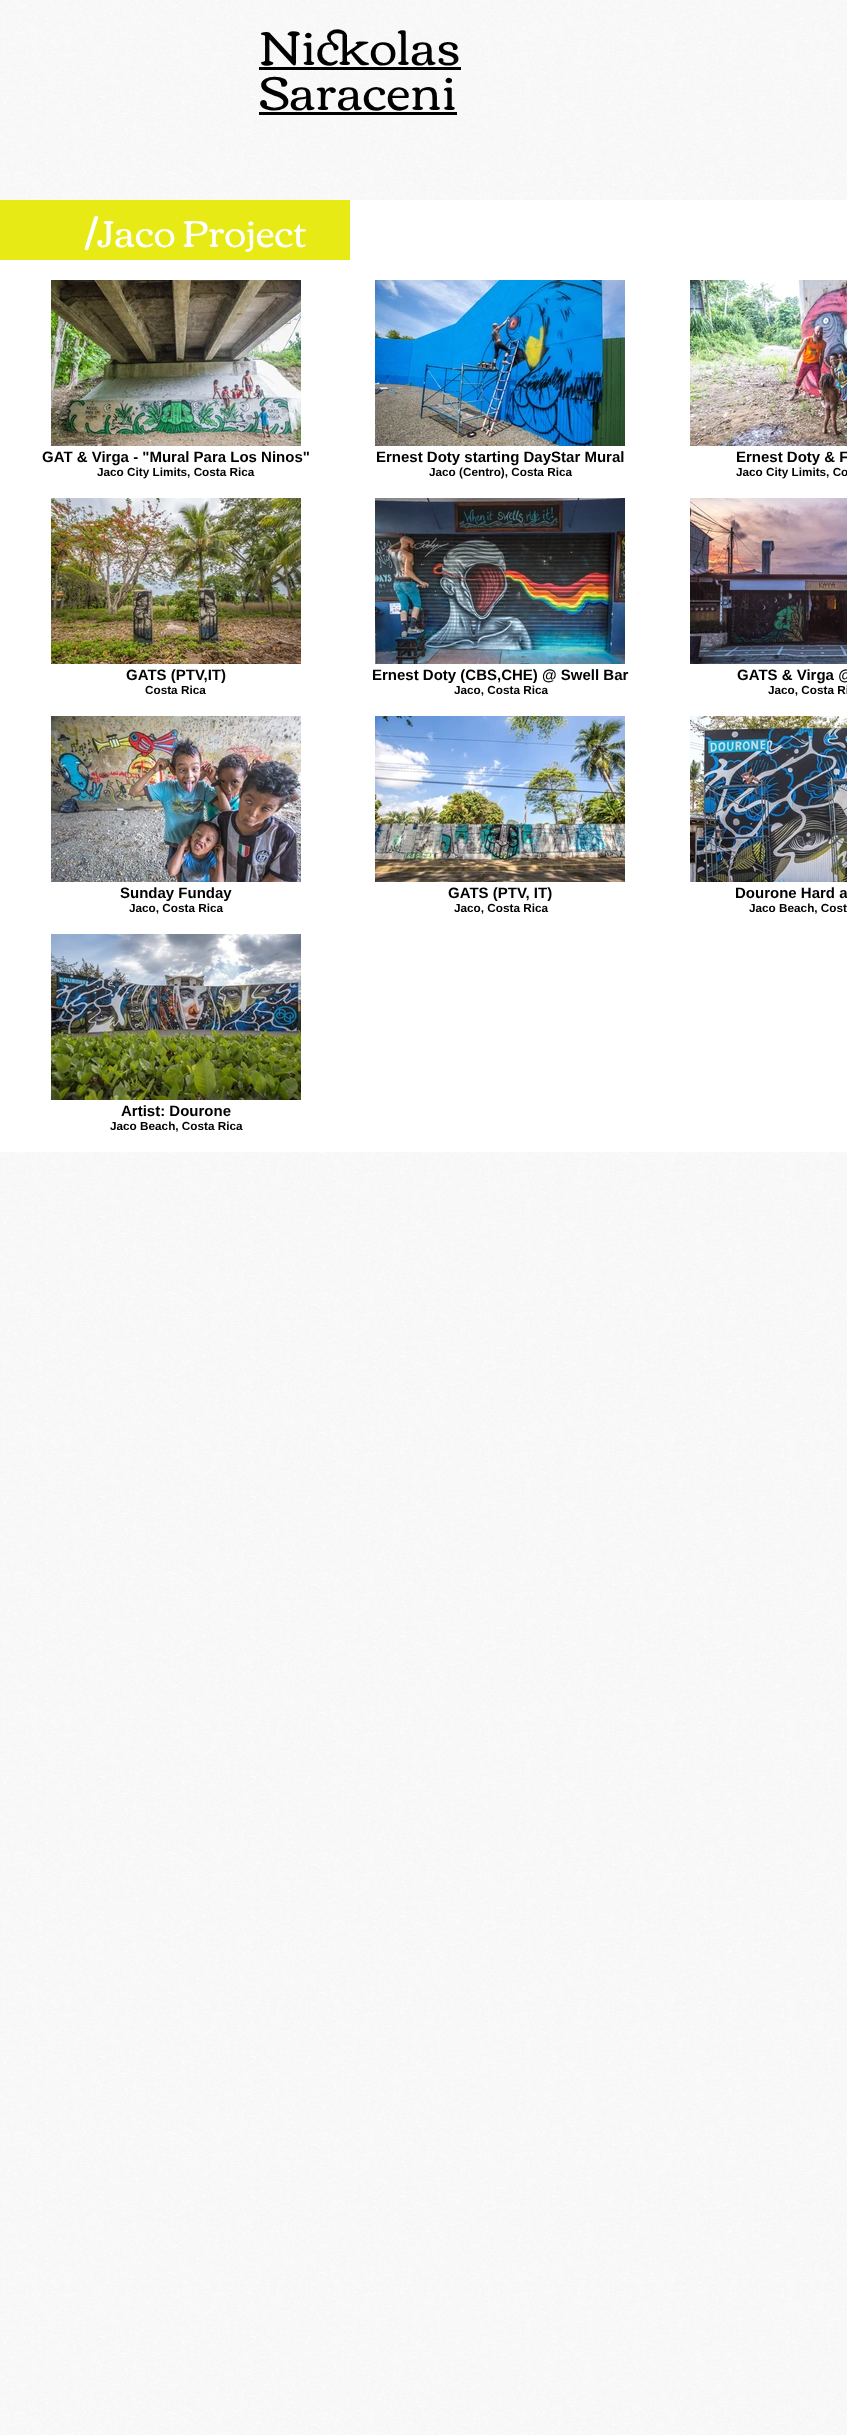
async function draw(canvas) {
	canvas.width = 847;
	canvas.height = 2435;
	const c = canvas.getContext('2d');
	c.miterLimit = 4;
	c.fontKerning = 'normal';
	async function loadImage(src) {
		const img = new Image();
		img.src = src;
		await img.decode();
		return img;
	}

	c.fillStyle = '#fff';
	c.fillRect(0, 0, 847, 2435);
	c.drawImage(await loadImage('img1.png'), 0, 0, 847, 2435);
	c.font = '48px Corben';
	c.fillStyle = '#000';
	c.fillText('Nickolas', 259, 65);
	c.fillRect(259, 67, 202, 3);
	c.fillText('Saraceni', 259, 110);
	for (const [x, y, w, h, color] of [
		[259, 112, 198, 3, '#000'],
		[0, 200, 847, 952, '#fff'],
		[0, 200, 350, 60, '#e7ea15'],
	]) {
		c.fillStyle = color;
		c.fillRect(x, y, w, h);
	}
	c.font = '38px Corben';
	c.fillStyle = '#fff';
	c.fillText('/Jaco Project', 85, 247);
	c.drawImage(await loadImage('img2.png'), 51, 280, 250, 166);
	c.font = 'bold 15px Liberation Sans';
	c.fillStyle = '#000';
	c.fillText('GAT & Virga - "Mural Para Los Ninos"', 42, 462);
	c.font = 'bold 11.75px Liberation Sans';
	c.fillText('Jaco City Limits, Costa Rica', 97, 476);
	c.drawImage(await loadImage('img3.png'), 375, 280, 250, 166);
	c.font = 'bold 15px Liberation Sans';
	c.fillText('Ernest Doty starting DayStar Mural', 376, 462);
	c.font = 'bold 11.75px Liberation Sans';
	c.fillText('Jaco (Centro), Costa Rica', 429, 476);
	c.drawImage(await loadImage('img4.png'), 690, 280, 157, 166);
	c.font = 'bold 15px Liberation Sans';
	c.fillText('Ernest Doty & F', 736, 462);
	c.font = 'bold 11.75px Liberation Sans';
	c.fillText('Jaco City Limits, Co', 736, 476);
	c.drawImage(await loadImage('img5.png'), 51, 498, 250, 166);
	c.font = 'bold 15px Liberation Sans';
	c.fillText('GATS (PTV,IT)', 126, 680);
	c.font = 'bold 11.75px Liberation Sans';
	c.fillText('Costa Rica', 145, 694);
	c.drawImage(await loadImage('img6.png'), 375, 498, 250, 166);
	c.font = 'bold 15px Liberation Sans';
	c.fillText('Ernest Doty (CBS,CHE) @ Swell Bar', 372, 680);
	c.font = 'bold 11.75px Liberation Sans';
	c.fillText('Jaco, Costa Rica', 454, 694);
	c.drawImage(await loadImage('img7.png'), 690, 498, 157, 166);
	c.font = 'bold 15px Liberation Sans';
	c.fillText('GATS & Virga @', 737, 680);
	c.font = 'bold 11.75px Liberation Sans';
	c.fillText('Jaco, Costa Ri', 768, 694);
	c.drawImage(await loadImage('img8.png'), 51, 716, 250, 166);
	c.font = 'bold 15px Liberation Sans';
	c.fillText('Sunday Funday', 120, 898);
	c.font = 'bold 11.75px Liberation Sans';
	c.fillText('Jaco, Costa Rica', 129, 912);
	c.drawImage(await loadImage('img9.png'), 375, 716, 250, 166);
	c.font = 'bold 15px Liberation Sans';
	c.fillText('GATS (PTV, IT)', 448, 898);
	c.font = 'bold 11.75px Liberation Sans';
	c.fillText('Jaco, Costa Rica', 454, 912);
	c.drawImage(await loadImage('img10.png'), 690, 716, 157, 166);
	c.font = 'bold 15px Liberation Sans';
	c.fillText('Dourone Hard a', 735, 898);
	c.font = 'bold 11.75px Liberation Sans';
	c.fillText('Jaco Beach, Cost', 749, 912);
	c.drawImage(await loadImage('img11.png'), 51, 934, 250, 166);
	c.font = 'bold 15px Liberation Sans';
	c.fillText('Artist: Dourone', 121, 1116);
	c.font = 'bold 11.75px Liberation Sans';
	c.fillText('Jaco Beach, Costa Rica', 110, 1130);
}

draw(document.querySelector('canvas'));
